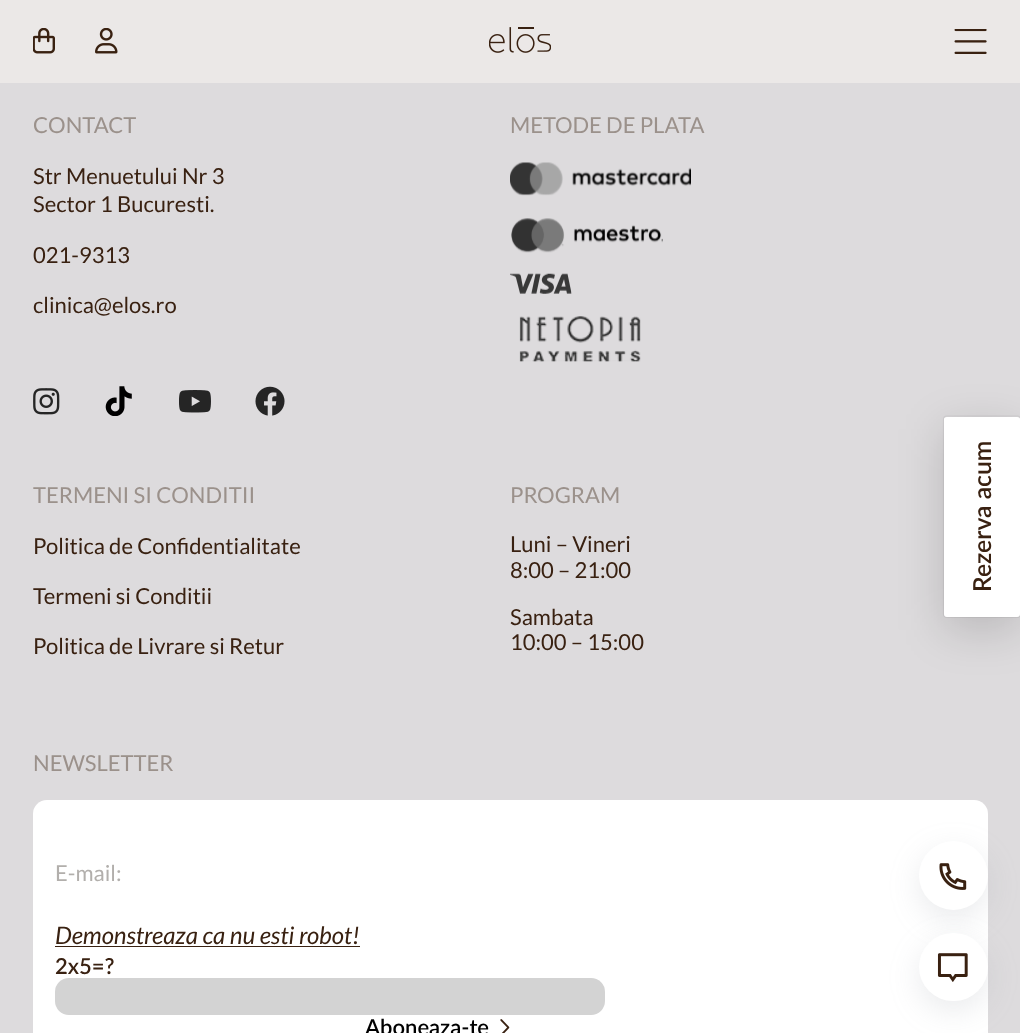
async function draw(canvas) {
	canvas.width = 1020;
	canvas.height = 1033;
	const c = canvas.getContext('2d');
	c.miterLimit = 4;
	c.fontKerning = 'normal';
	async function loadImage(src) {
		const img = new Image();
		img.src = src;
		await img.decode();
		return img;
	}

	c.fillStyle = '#dddbdd';
	c.fillRect(0, 0, 1020, 1033);
	c.fillStyle = '#ebe8e7';
	c.fillRect(0, 0, 1020, 83);
	c.drawImage(await loadImage('img1.png'), 33, 28, 22, 26);
	c.drawImage(await loadImage('img2.png'), 95, 28, 23, 26);
	c.drawImage(await loadImage('img3.png'), 489, 27, 62, 26);
	c.drawImage(await loadImage('img4.png'), 954, 29, 33, 25);
	c.font = '22px Lato';
	c.fillStyle = '#9b918b';
	c.fillText('CONTACT', 33, 133);
	c.fillStyle = '#392111';
	for (const [text, x, y] of [
		['Str Menuetului Nr 3', 33, 184],
		['Sector 1 Bucuresti.', 33, 212],
		['021-9313', 33, 263],
		['clinica@elos.ro', 33, 313],
	]) {
		c.fillText(text, x, y);
	}
	c.drawImage(await loadImage('img5.png'), 33, 388, 27, 27);
	c.drawImage(await loadImage('img6.png'), 105, 386, 27, 30);
	c.drawImage(await loadImage('img7.png'), 179, 390, 32, 23);
	c.drawImage(await loadImage('img8.png'), 255, 386, 30, 30);
	c.fillStyle = '#9b918b';
	c.fillText('METODE DE PLATA', 510, 133);
	c.drawImage(await loadImage('img9.png'), 510, 162, 181, 34);
	c.drawImage(await loadImage('img10.png'), 511, 218, 152, 35);
	c.drawImage(await loadImage('img11.png'), 510, 273, 62, 21);
	c.drawImage(await loadImage('img12.png'), 519, 316, 122, 46);
	c.fillText('TERMENI SI CONDITII', 33, 503);
	c.fillStyle = '#392111';
	for (const [text, x, y] of [
		['Politica de Confidentialitate', 33, 554],
		['Termeni si Conditii', 33, 604],
		['Politica de Livrare si Retur', 33, 654],
	]) {
		c.fillText(text, x, y);
	}
	c.fillStyle = '#9b918b';
	c.fillText('PROGRAM', 510, 503);
	c.fillStyle = '#392111';
	for (const [text, x, y] of [
		['Luni – Vineri', 510, 552],
		['8:00 – 21:00', 510, 578],
		['Sambata', 510, 625],
		['10:00 – 15:00', 510, 650],
	]) {
		c.fillText(text, x, y);
	}
	c.fillStyle = '#9b918b';
	c.fillText('NEWSLETTER', 33, 771);
	c.fillStyle = '#fff';
	c.beginPath();
	c.roundRect(33, 800, 955, 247, 14);
	c.fill();
	c.fillStyle = '#b2afac';
	c.fillText('E-mail:', 55, 881);
	c.font = 'italic 24.1px Lato';
	c.fillStyle = '#392111';
	c.fillText('Demonstreaza ca nu esti robot!', 55, 944);
	c.fillRect(55, 946, 305, 1);
	c.font = '600 22px Lato';
	c.fillText('2x5=?', 55, 974);
	c.fillStyle = '#d3d3d3';
	c.beginPath();
	c.roundRect(55, 978, 550, 37, 14);
	c.fill();
	c.fillStyle = '#000';
	c.fillText('Aboneaza-te', 365, 1035);
	c.drawImage(await loadImage('img13.png'), 500, 1019, 10, 14);
	c.beginPath();
	c.moveTo(1017.5, 617.5);
	c.lineTo(947, 617.5);
	c.bezierCurveTo(945, 617.5, 943.5, 616, 943.5, 614.5);
	c.lineTo(943.5, 419.5);
	c.bezierCurveTo(943.5, 417.5, 945, 416, 947, 416);
	c.lineTo(1017.5, 416);
	c.bezierCurveTo(1019, 416, 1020.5, 417.5, 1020.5, 419.5);
	c.lineTo(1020.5, 614.5);
	c.bezierCurveTo(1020.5, 616, 1019, 617.5, 1017.5, 617.5);
	c.closePath();
	c.strokeStyle = '#d0ced0';
	c.lineWidth = 1.2;
	c.stroke();
	c.fillStyle = '#00000029';
	c.filter = 'blur(22.5px)';
	c.beginPath();
	c.roundRect(944, 429, 76, 201, 2.5);
	c.fill();
	c.filter = 'none';
	c.fillStyle = '#fff';
	c.beginPath();
	c.moveTo(1017, 617);
	c.lineTo(947, 617);
	c.bezierCurveTo(945, 617, 944, 616, 944, 614);
	c.lineTo(944, 419);
	c.bezierCurveTo(944, 418, 945, 417, 947, 417);
	c.lineTo(1017, 417);
	c.bezierCurveTo(1019, 417, 1020, 418, 1020, 419);
	c.lineTo(1020, 614);
	c.bezierCurveTo(1020, 616, 1019, 617, 1017, 617);
	c.closePath();
	c.fill();
	c.font = '600 24.75px Lato';
	c.fillStyle = '#392111';
	c.save();
	c.translate(991, 592);
	c.rotate(-90 * Math.PI / 180);
	c.fillText('Rezerva acum', 0, 0);
	c.restore();
	c.fillStyle = '#959da533';
	c.filter = 'blur(15px)';
	c.beginPath();
	c.roundRect(919, 851, 69, 69, 34.5);
	c.fill();
	c.filter = 'none';
	c.fillStyle = '#fff';
	c.beginPath();
	c.arc(953.5, 875.5, 34.5, 0, 2 * Math.PI);
	c.fill();
	c.drawImage(await loadImage('img14.png'), 939, 863, 28, 27);
	c.fillStyle = '#959da533';
	c.filter = 'blur(15px)';
	c.beginPath();
	c.roundRect(919, 943, 69, 68, 34);
	c.fill();
	c.filter = 'none';
	c.fillStyle = '#fff';
	c.beginPath();
	c.roundRect(919, 933, 69, 68, 34);
	c.fill();
	c.drawImage(await loadImage('img15.png'), 937, 953, 31, 29);
}

draw(document.querySelector('canvas'));
